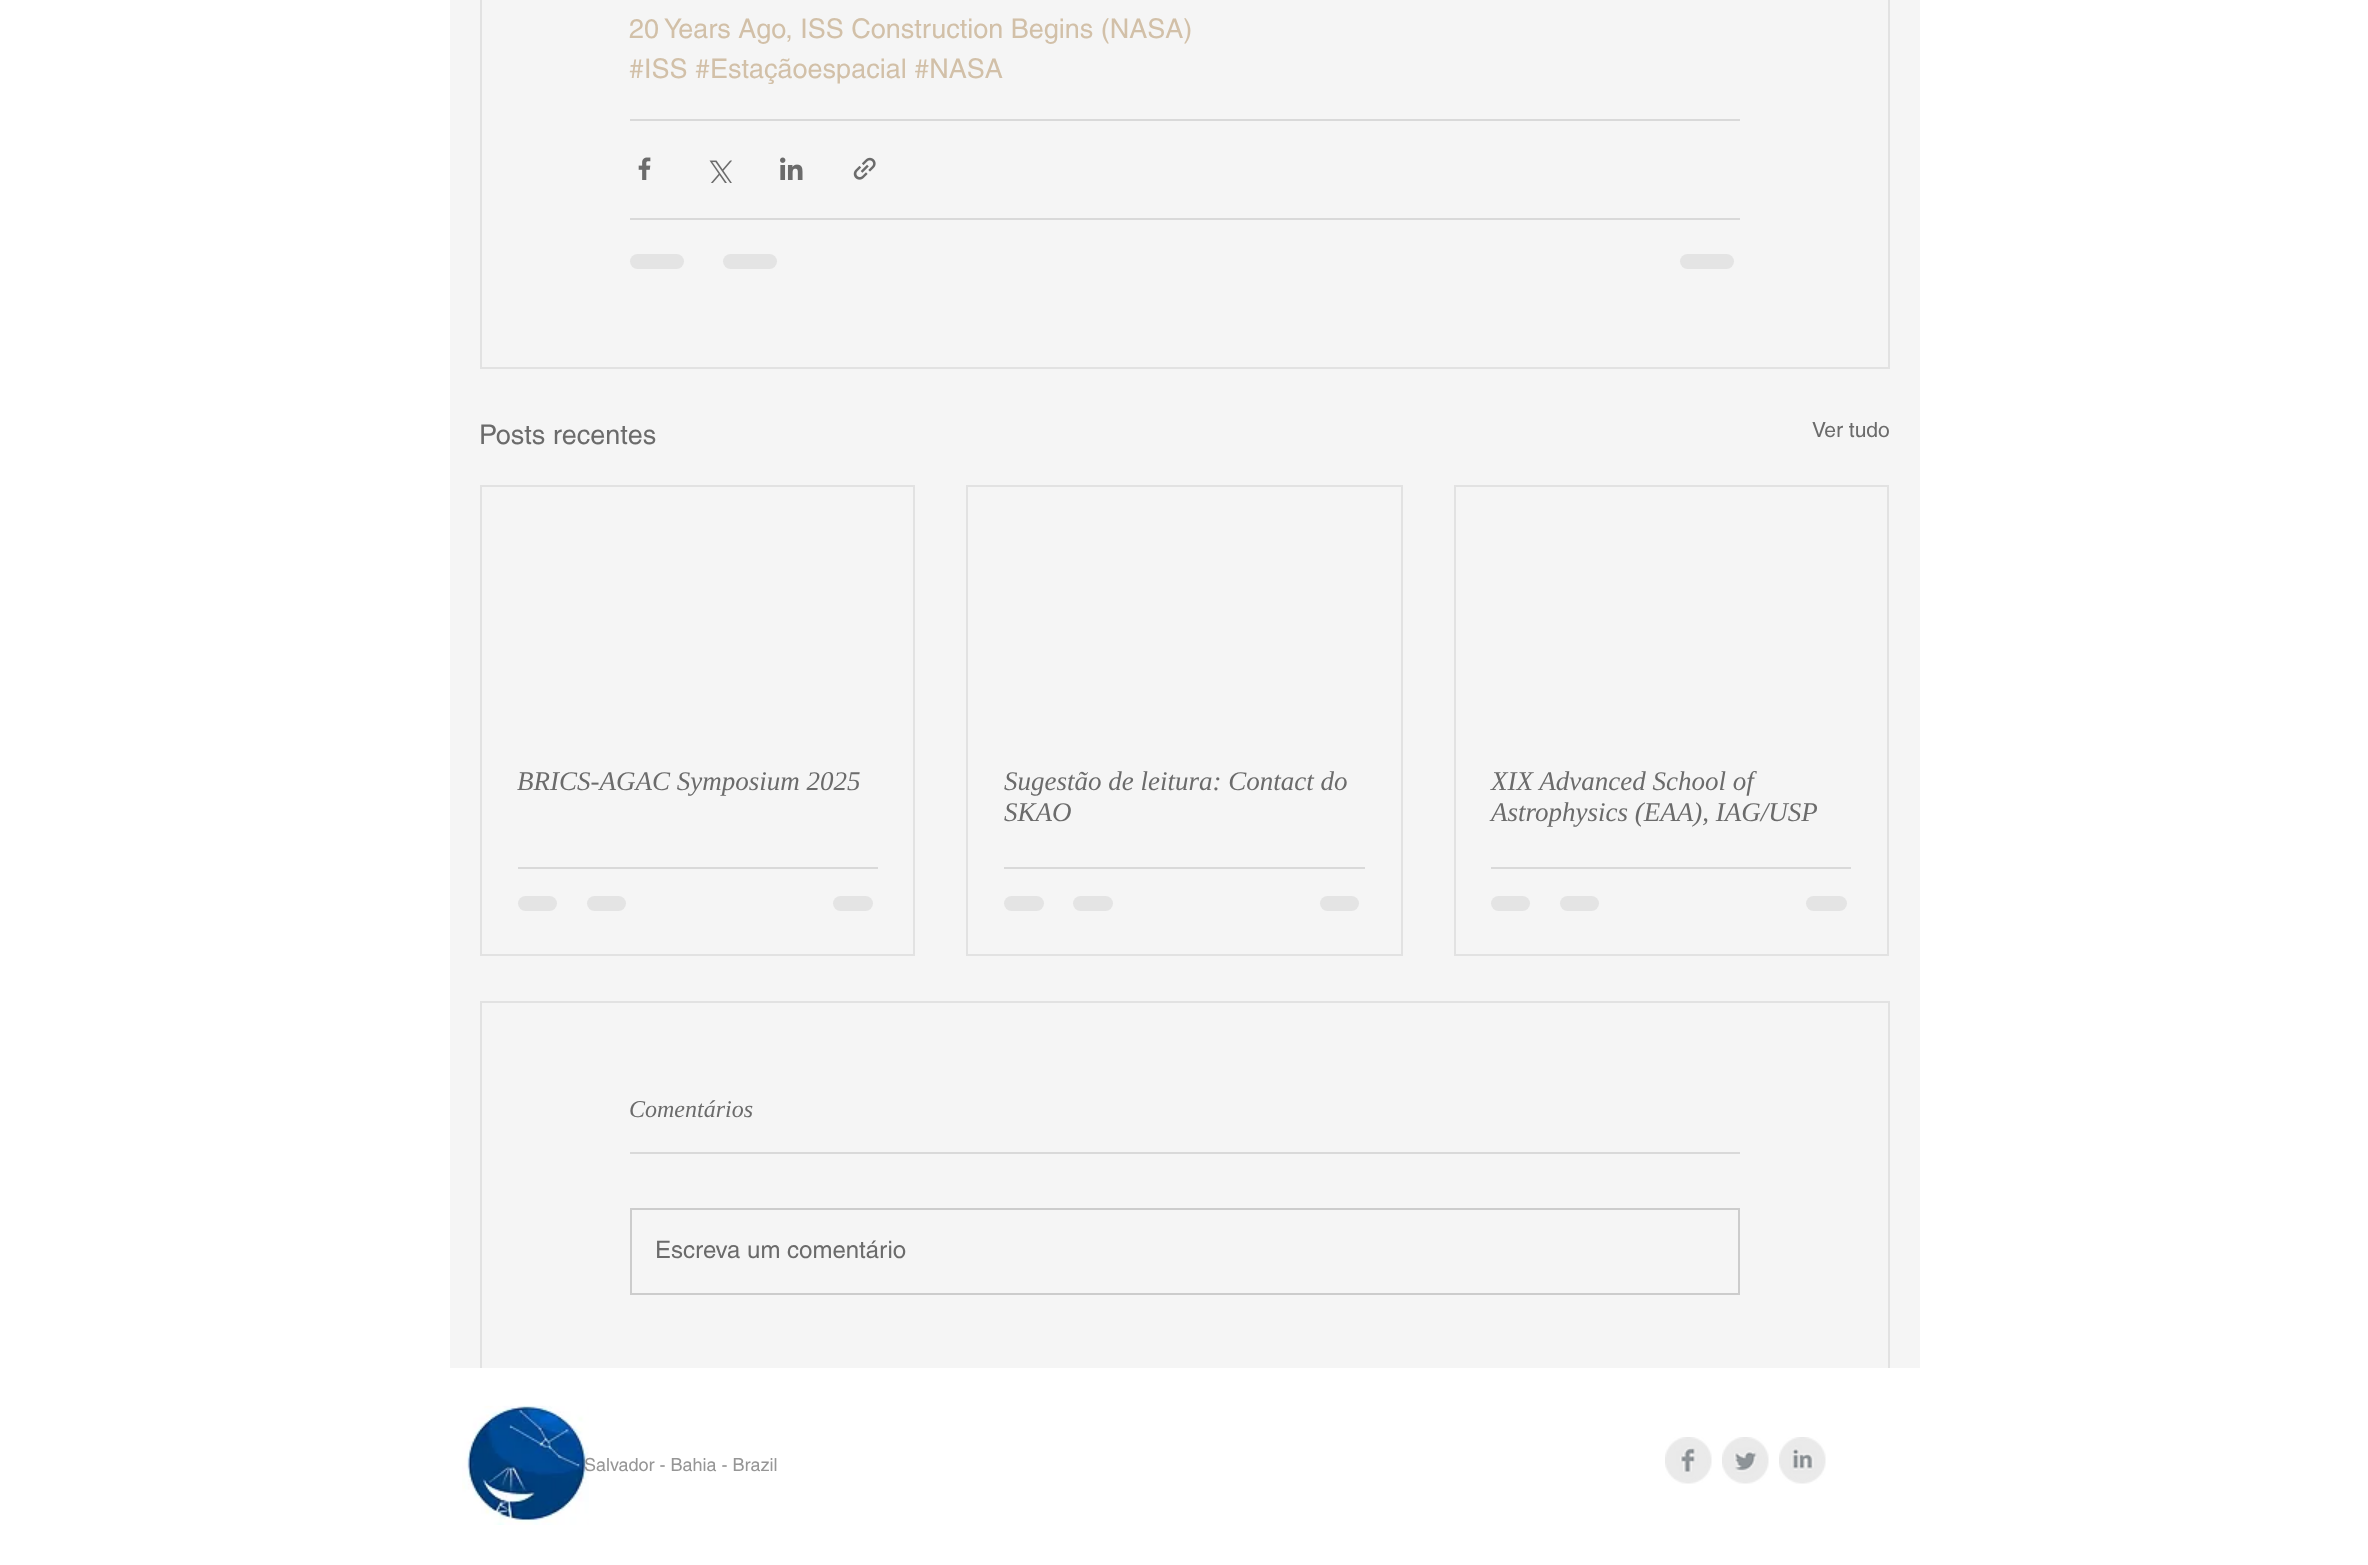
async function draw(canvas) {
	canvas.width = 2368;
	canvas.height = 1565;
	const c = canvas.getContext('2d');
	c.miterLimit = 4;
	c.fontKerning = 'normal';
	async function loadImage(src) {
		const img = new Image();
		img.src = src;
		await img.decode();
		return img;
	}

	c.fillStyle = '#fff';
	c.fillRect(0, 0, 2368, 1565);
	c.fillStyle = '#f5f5f5';
	c.fillRect(450, 0, 1470, 1368);
	c.strokeStyle = '#e2e2e2';
	c.lineWidth = 2;
	c.strokeRect(481, -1, 1408, 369);
	c.font = '27px helvetica';
	c.fillStyle = '#d2c0a8';
	c.fillText('20 Years Ago, ISS Construction Begins (NASA)', 629, 38);
	c.fillText('#ISS #Estaçãoespacial #NASA', 629, 78);
	c.fillStyle = '#d9d9d9';
	c.fillRect(630, 119, 1110, 2);
	c.drawImage(await loadImage('img1.png'), 638, 157, 13, 23);
	c.drawImage(await loadImage('img2.png'), 709, 160, 23, 23);
	c.drawImage(await loadImage('img3.png'), 780, 157, 23, 23);
	c.drawImage(await loadImage('img4.png'), 853, 157, 23, 23);
	c.fillRect(630, 218, 1110, 2);
	c.fillStyle = '#e4e4e4';
	c.beginPath();
	c.roundRect(630, 254, 54, 15, 7.5);
	c.fill();
	c.beginPath();
	c.roundRect(723, 254, 54, 15, 7.5);
	c.fill();
	c.beginPath();
	c.roundRect(1680, 254, 54, 15, 7.5);
	c.fill();
	c.fillStyle = '#6b6b6b';
	c.fillText('Posts recentes', 479, 444);
	c.font = '21px helvetica';
	c.fillText('Ver tudo', 1812, 437);
	c.strokeRect(481, 486, 433, 469);
	c.font = 'italic 27px Liberation Serif';
	c.fillText('BRICS-AGAC Symposium 2025', 517, 790);
	c.fillStyle = '#d9d9d9';
	c.fillRect(518, 867, 360, 2);
	c.fillStyle = '#e4e4e4';
	c.beginPath();
	c.roundRect(518, 896, 39, 15, 7.5);
	c.fill();
	c.beginPath();
	c.roundRect(587, 896, 39, 15, 7.5);
	c.fill();
	c.beginPath();
	c.roundRect(833, 896, 40, 15, 7.5);
	c.fill();
	c.strokeRect(967, 486, 435, 469);
	c.fillStyle = '#6b6b6b';
	c.fillText('Sugestão de leitura: Contact do', 1004, 790);
	c.fillText('SKAO', 1004, 821);
	c.fillStyle = '#d9d9d9';
	c.fillRect(1004, 867, 361, 2);
	c.fillStyle = '#e4e4e4';
	c.beginPath();
	c.roundRect(1004, 896, 40, 15, 7.5);
	c.fill();
	c.beginPath();
	c.roundRect(1073, 896, 40, 15, 7.5);
	c.fill();
	c.beginPath();
	c.roundRect(1320, 896, 39, 15, 7.5);
	c.fill();
	c.strokeRect(1455, 486, 433, 469);
	c.fillStyle = '#6b6b6b';
	c.fillText('XIX Advanced School of', 1491, 790);
	c.fillText('Astrophysics (EAA), IAG/USP', 1491, 821);
	c.fillStyle = '#d9d9d9';
	c.fillRect(1491, 867, 360, 2);
	c.fillStyle = '#e4e4e4';
	c.beginPath();
	c.roundRect(1491, 896, 39, 15, 7.5);
	c.fill();
	c.beginPath();
	c.roundRect(1560, 896, 39, 15, 7.5);
	c.fill();
	c.beginPath();
	c.roundRect(1806, 896, 41, 15, 7.5);
	c.fill();
	c.strokeRect(481, 1002, 1408, 395);
	c.font = 'italic 24px Liberation Serif';
	c.fillStyle = '#6b6b6b';
	c.fillText('Comentários', 629, 1117);
	c.fillStyle = '#d9d9d9';
	c.fillRect(630, 1152, 1110, 2);
	c.strokeStyle = '#ccc';
	c.strokeRect(631, 1209, 1108, 85);
	c.font = '24px helvetica';
	c.fillStyle = '#6b6b6b';
	c.fillText('Escreva um comentário', 655, 1258);
	c.fillStyle = '#fff';
	c.fillRect(480, 1368, 1410, 30);
	c.drawImage(await loadImage('img5.png'), 462, 1405, 127, 120);
	c.font = '18px helvetica';
	c.fillStyle = '#969696';
	c.fillText('Salvador - Bahia - Brazil', 584, 1471);
	c.drawImage(await loadImage('img6.png'), 1665, 1437, 47, 47);
	c.drawImage(await loadImage('img7.png'), 1722, 1437, 47, 47);
	c.drawImage(await loadImage('img8.png'), 1779, 1437, 47, 47);
}

draw(document.querySelector('canvas'));
